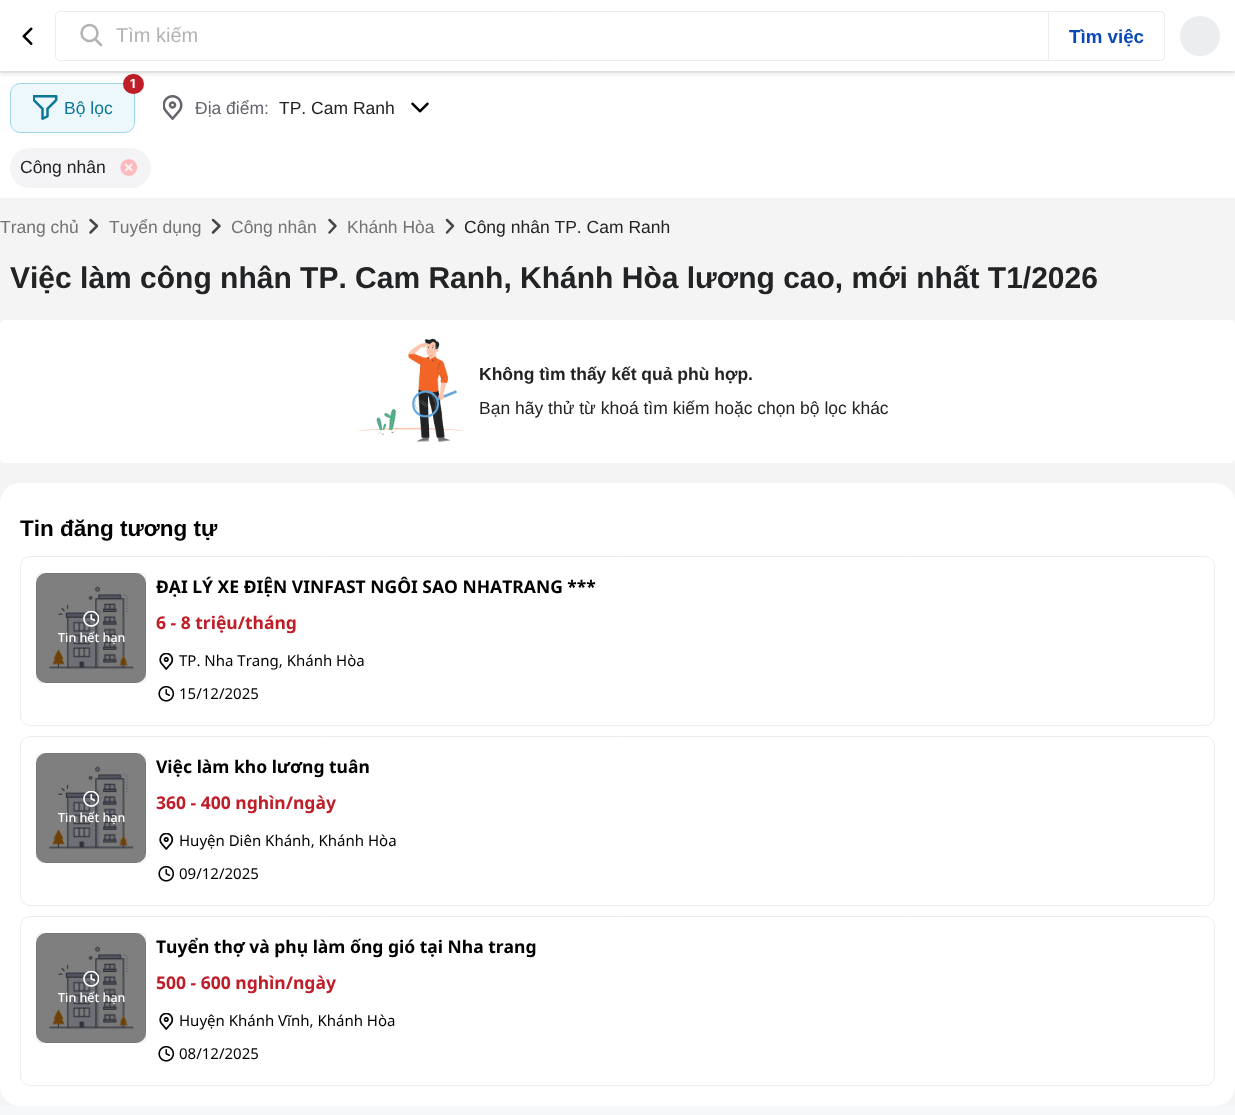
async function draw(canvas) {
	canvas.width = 1235;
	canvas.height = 1115;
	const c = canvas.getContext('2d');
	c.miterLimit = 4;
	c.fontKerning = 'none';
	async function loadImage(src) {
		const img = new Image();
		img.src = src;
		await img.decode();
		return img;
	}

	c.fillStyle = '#f4f4f4';
	c.fillRect(0, 0, 1235, 1115);
	c.fillStyle = '#fff';
	c.fillRect(0, 73, 1235, 125);
	c.fillStyle = '#edf8fc';
	c.beginPath();
	c.roundRect(10.5, 83.5, 124, 49, 9.5);
	c.fill();
	c.strokeStyle = '#a1d6e7';
	c.stroke();
	c.fillStyle = '#bf1d28';
	c.beginPath();
	c.roundRect(123, 74, 21, 20, 10);
	c.fill();
	c.fillStyle = '#0000001a';
	c.filter = 'blur(2.5px)';
	c.beginPath();
	c.rect(0, 3, 1235, 71);
	c.fill();
	c.filter = 'none';
	c.fillStyle = '#fff';
	c.fillRect(0, 0, 1235, 71);
	c.drawImage(await loadImage('img1.png'), 22, 27, 11, 18);
	c.beginPath();
	c.roundRect(55.5, 11.5, 993, 49, [4.5, 0, 0, 4.5]);
	c.strokeStyle = '#ecedef';
	c.stroke();
	c.beginPath();
	c.arc(89.5, 33, 8, 0, 2 * Math.PI);
	c.strokeStyle = '#b1b3b5';
	c.lineWidth = 2.5;
	c.stroke();
	c.beginPath();
	c.moveTo(95.5, 39.5);
	c.lineTo(101, 45);
	c.lineCap = 'round';
	c.lineJoin = 'round';
	c.stroke();
	c.font = '20px Liberation Sans';
	c.fillStyle = '#b1b3b5';
	c.fillText('Tìm kiếm', 116, 42);
	c.fillStyle = '#ecedef';
	c.beginPath();
	c.moveTo(1049, 11);
	c.lineTo(1160, 11);
	c.bezierCurveTo(1163, 11, 1165, 13, 1165, 16);
	c.lineTo(1165, 56);
	c.bezierCurveTo(1165, 59, 1163, 61, 1160, 61);
	c.lineTo(1049, 61);
	c.closePath();
	c.moveTo(1049, 12);
	c.lineTo(1160, 12);
	c.bezierCurveTo(1162, 12, 1164, 14, 1164, 16);
	c.lineTo(1164, 56);
	c.bezierCurveTo(1164, 58, 1162, 60, 1160, 60);
	c.lineTo(1049, 60);
	c.closePath();
	c.fill('evenodd');
	c.font = 'bold 18.75px Liberation Sans';
	c.fillStyle = '#084ab9';
	c.fillText('Tìm việc', 1069, 43);
	c.fillStyle = '#ecedef';
	c.beginPath();
	c.arc(1200, 36, 20, 0, 2 * Math.PI);
	c.fill();
	c.font = 'bold 12.5px Inter';
	c.fillStyle = '#fff';
	c.fillText('1', 130, 88);
	c.drawImage(await loadImage('img2.png'), 33, 95, 25, 25);
	c.font = '17.5px Liberation Sans';
	c.fillStyle = '#0c7699';
	c.fillText('Bộ lọc', 64, 114);
	c.drawImage(await loadImage('img3.png'), 163, 95, 20, 25);
	c.fillStyle = '#64646d';
	c.fillText('Địa điểm:', 195, 114);
	c.fillStyle = '#212325';
	c.fillText('TP. Cam Ranh', 279, 114);
	c.drawImage(await loadImage('img4.png'), 411, 102, 18, 11);
	c.fillStyle = '#f4f3f6';
	c.beginPath();
	c.roundRect(10, 148, 141, 40, 20);
	c.fill();
	c.fillStyle = '#212325';
	c.fillText('Công nhân', 20, 173);
	c.drawImage(await loadImage('img5.png'), 120, 159, 17, 17);
	c.fillStyle = '#717375';
	c.fillText('Trang chủ', 0, 233);
	c.beginPath();
	c.moveTo(90.5, 220);
	c.lineTo(97, 226);
	c.lineTo(90.5, 232.5);
	c.strokeStyle = '#454749';
	c.stroke();
	c.fillText('Tuyển dụng', 109, 233);
	c.beginPath();
	c.moveTo(213, 220);
	c.lineTo(219.5, 226);
	c.lineTo(213, 232.5);
	c.stroke();
	c.fillText('Công nhân', 231, 233);
	c.beginPath();
	c.moveTo(329.5, 220);
	c.lineTo(335.5, 226);
	c.lineTo(329.5, 232.5);
	c.stroke();
	c.fillText('Khánh Hòa', 347, 233);
	c.beginPath();
	c.moveTo(447, 220);
	c.lineTo(453, 226);
	c.lineTo(447, 232.5);
	c.stroke();
	c.fillStyle = '#212325';
	c.fillText('Công nhân TP. Cam Ranh', 464, 233);
	c.font = 'bold 30px Liberation Sans';
	c.fillText('Việc làm công nhân TP. Cam Ranh, Khánh Hòa lương cao, mới nhất T1/2026', 10, 288);
	c.fillStyle = '#fff';
	c.beginPath();
	c.roundRect(0, 320, 1235, 143, 5);
	c.fill();
	c.drawImage(await loadImage('img6.png'), 356, 338, 109, 105);
	c.font = 'bold 17.5px Liberation Sans';
	c.fillStyle = '#212325';
	c.fillText('Không tìm thấy kết quả phù hợp.', 479, 380);
	c.font = '17.5px Liberation Sans';
	c.fillText('Bạn hãy thử từ khoá tìm kiếm hoặc chọn bộ lọc khác', 479, 414);
	c.fillStyle = '#fff';
	c.beginPath();
	c.roundRect(0, 483, 1235, 623, 20);
	c.fill();
	c.font = 'bold 22.5px Liberation Sans';
	c.fillStyle = '#000';
	c.fillText('Tin đăng tương tự', 20, 536);
	c.beginPath();
	c.roundRect(20.5, 556.5, 1194, 169, 9.5);
	c.strokeStyle = '#ecedef';
	c.lineWidth = 1;
	c.lineJoin = 'miter';
	c.stroke();
	c.beginPath();
	c.roundRect(36.5, 573.5, 109, 109, 4.5);
	c.stroke();
	c.drawImage(await loadImage('img7.png'), 49, 586, 85, 83);
	c.fillStyle = '#00000080';
	c.beginPath();
	c.roundRect(36, 573, 110, 110, 10);
	c.fill();
	c.drawImage(await loadImage('img8.png'), 83, 611, 16, 16);
	c.font = '500 12.5px Noto Sans';
	c.fillStyle = '#fff';
	c.fillText('Tin hết hạn', 58, 642);
	c.font = 'bold 17.5px Noto Sans';
	c.fillStyle = '#000';
	c.fillText('ĐẠI LÝ XE ĐIỆN VINFAST NGÔI SAO NHATRANG ***', 156, 593);
	c.fillStyle = '#bf1d28';
	c.fillText('6 - 8 triệu/tháng', 156, 629);
	c.drawImage(await loadImage('img9.png'), 159, 653, 15, 17);
	c.font = '15px Noto Sans';
	c.fillStyle = '#000';
	c.fillText('TP. Nha Trang, Khánh Hòa', 179, 666);
	c.drawImage(await loadImage('img10.png'), 158, 686, 16, 16);
	c.fillText('15/12/2025', 179, 699);
	c.beginPath();
	c.roundRect(20.5, 736.5, 1194, 169, 9.5);
	c.stroke();
	c.beginPath();
	c.roundRect(36.5, 753.5, 109, 109, 4.5);
	c.stroke();
	c.drawImage(await loadImage('img7.png'), 49, 766, 85, 83);
	c.fillStyle = '#00000080';
	c.beginPath();
	c.roundRect(36, 753, 110, 110, 10);
	c.fill();
	c.drawImage(await loadImage('img8.png'), 83, 791, 16, 16);
	c.font = '500 12.5px Noto Sans';
	c.fillStyle = '#fff';
	c.fillText('Tin hết hạn', 58, 822);
	c.font = 'bold 17.5px Noto Sans';
	c.fillStyle = '#000';
	c.fillText('Việc làm kho lương tuân', 156, 773);
	c.fillStyle = '#bf1d28';
	c.fillText('360 - 400 nghìn/ngày', 156, 809);
	c.drawImage(await loadImage('img9.png'), 159, 833, 15, 17);
	c.font = '15px Noto Sans';
	c.fillStyle = '#000';
	c.fillText('Huyện Diên Khánh, Khánh Hòa', 179, 846);
	c.drawImage(await loadImage('img10.png'), 158, 866, 16, 16);
	c.fillText('09/12/2025', 179, 879);
	c.beginPath();
	c.roundRect(20.5, 916.5, 1194, 169, 9.5);
	c.stroke();
	c.beginPath();
	c.roundRect(36.5, 933.5, 109, 109, 4.5);
	c.stroke();
	c.drawImage(await loadImage('img7.png'), 49, 946, 85, 83);
	c.fillStyle = '#00000080';
	c.beginPath();
	c.roundRect(36, 933, 110, 110, 10);
	c.fill();
	c.drawImage(await loadImage('img8.png'), 83, 971, 16, 16);
	c.font = '500 12.5px Noto Sans';
	c.fillStyle = '#fff';
	c.fillText('Tin hết hạn', 58, 1002);
	c.font = 'bold 17.5px Noto Sans';
	c.fillStyle = '#000';
	c.fillText('Tuyển thợ và phụ làm ống gió tại Nha trang', 156, 953);
	c.fillStyle = '#bf1d28';
	c.fillText('500 - 600 nghìn/ngày', 156, 989);
	c.drawImage(await loadImage('img9.png'), 159, 1013, 15, 17);
	c.font = '15px Noto Sans';
	c.fillStyle = '#000';
	c.fillText('Huyện Khánh Vĩnh, Khánh Hòa', 179, 1026);
	c.drawImage(await loadImage('img10.png'), 158, 1046, 16, 16);
	c.fillText('08/12/2025', 179, 1059);
	c.fillStyle = '#f5f7f9';
	c.fillRect(0, 1106, 1235, 9);
}

draw(document.querySelector('canvas'));
